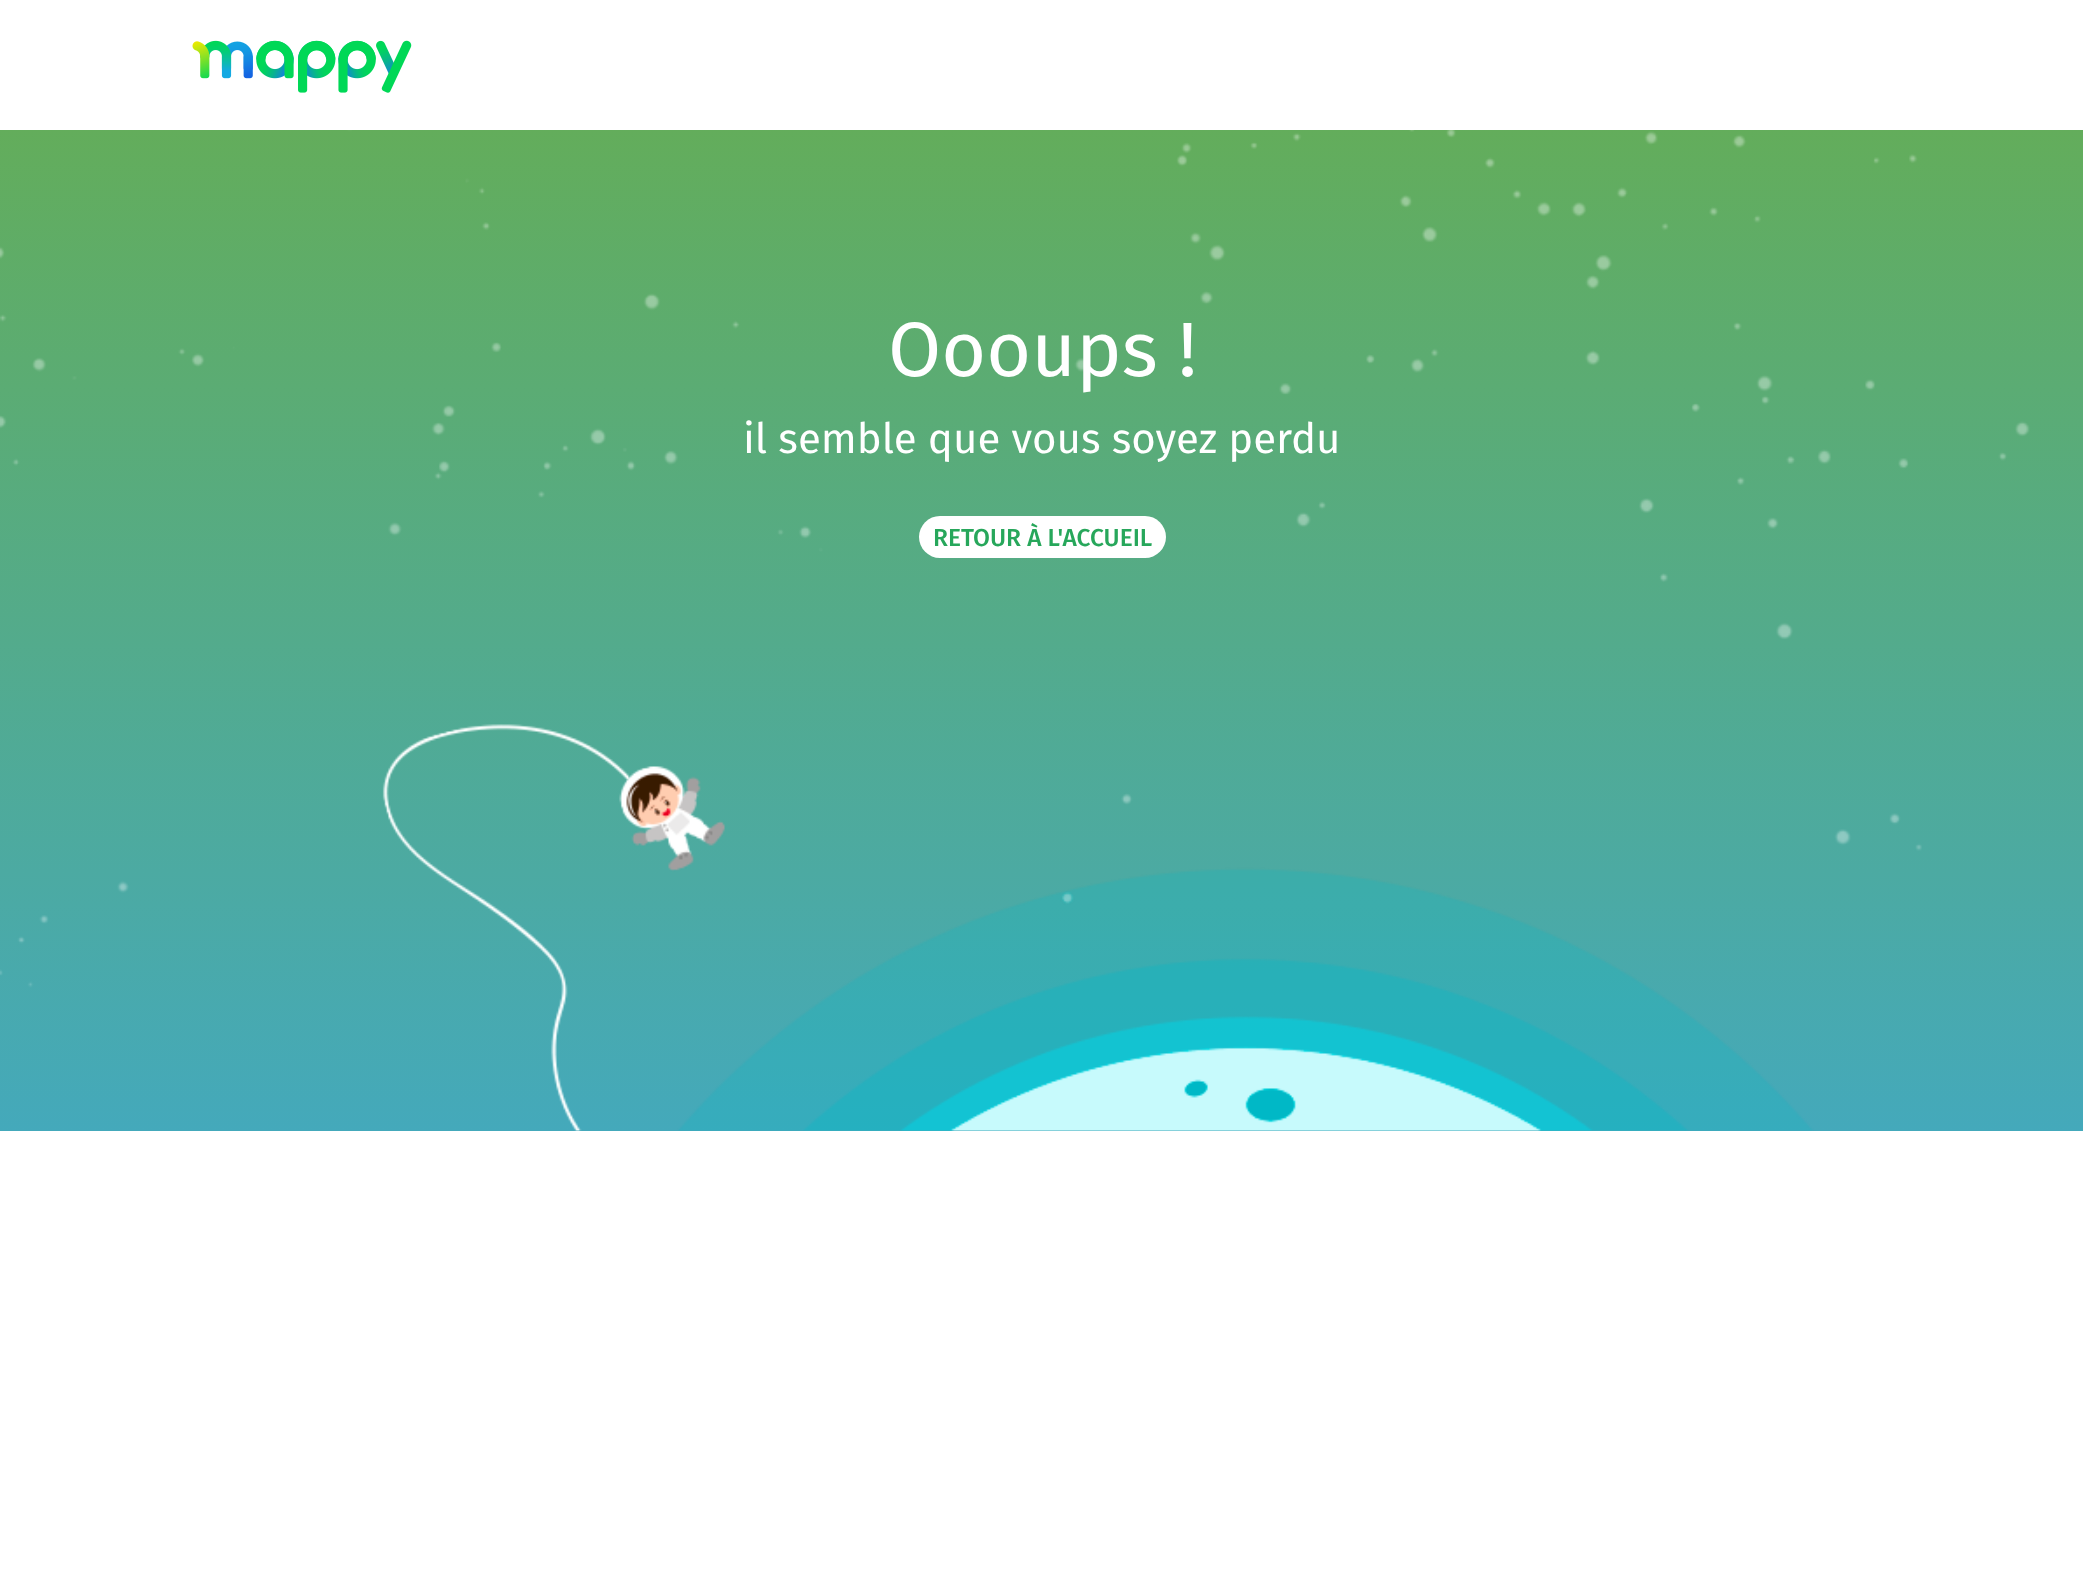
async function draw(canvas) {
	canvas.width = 2083;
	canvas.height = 1583;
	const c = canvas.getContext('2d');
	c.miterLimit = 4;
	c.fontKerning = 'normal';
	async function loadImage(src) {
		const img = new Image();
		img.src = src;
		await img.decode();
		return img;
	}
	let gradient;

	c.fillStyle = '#fff';
	c.fillRect(0, 0, 2083, 1583);
	c.drawImage(await loadImage('img1.png'), 192, 40, 220, 53);
	gradient = c.createLinearGradient(1042, 129, 1042, 1131);
	gradient.addColorStop(0, '#63ad5b');
	gradient.addColorStop(1, '#44a9bb');
	c.fillStyle = gradient;
	c.fillRect(0, 130, 2083, 1001);
	c.drawImage(await loadImage('img2.png'), 0, 130, 2030, 1001);
	c.font = '77px Fira Sans';
	c.fillStyle = '#fff';
	c.fillText('Oooups !', 888, 376);
	c.font = '42px Fira Sans';
	c.fillText('il semble que vous soyez perdu', 743, 453);
	c.beginPath();
	c.roundRect(919, 516, 247, 42, 21);
	c.fill();
	c.font = '500 24.5px Fira Sans';
	c.fillStyle = '#27a75b';
	c.fillText('RETOUR À L\'ACCUEIL', 933, 546);
}

draw(document.querySelector('canvas'));
